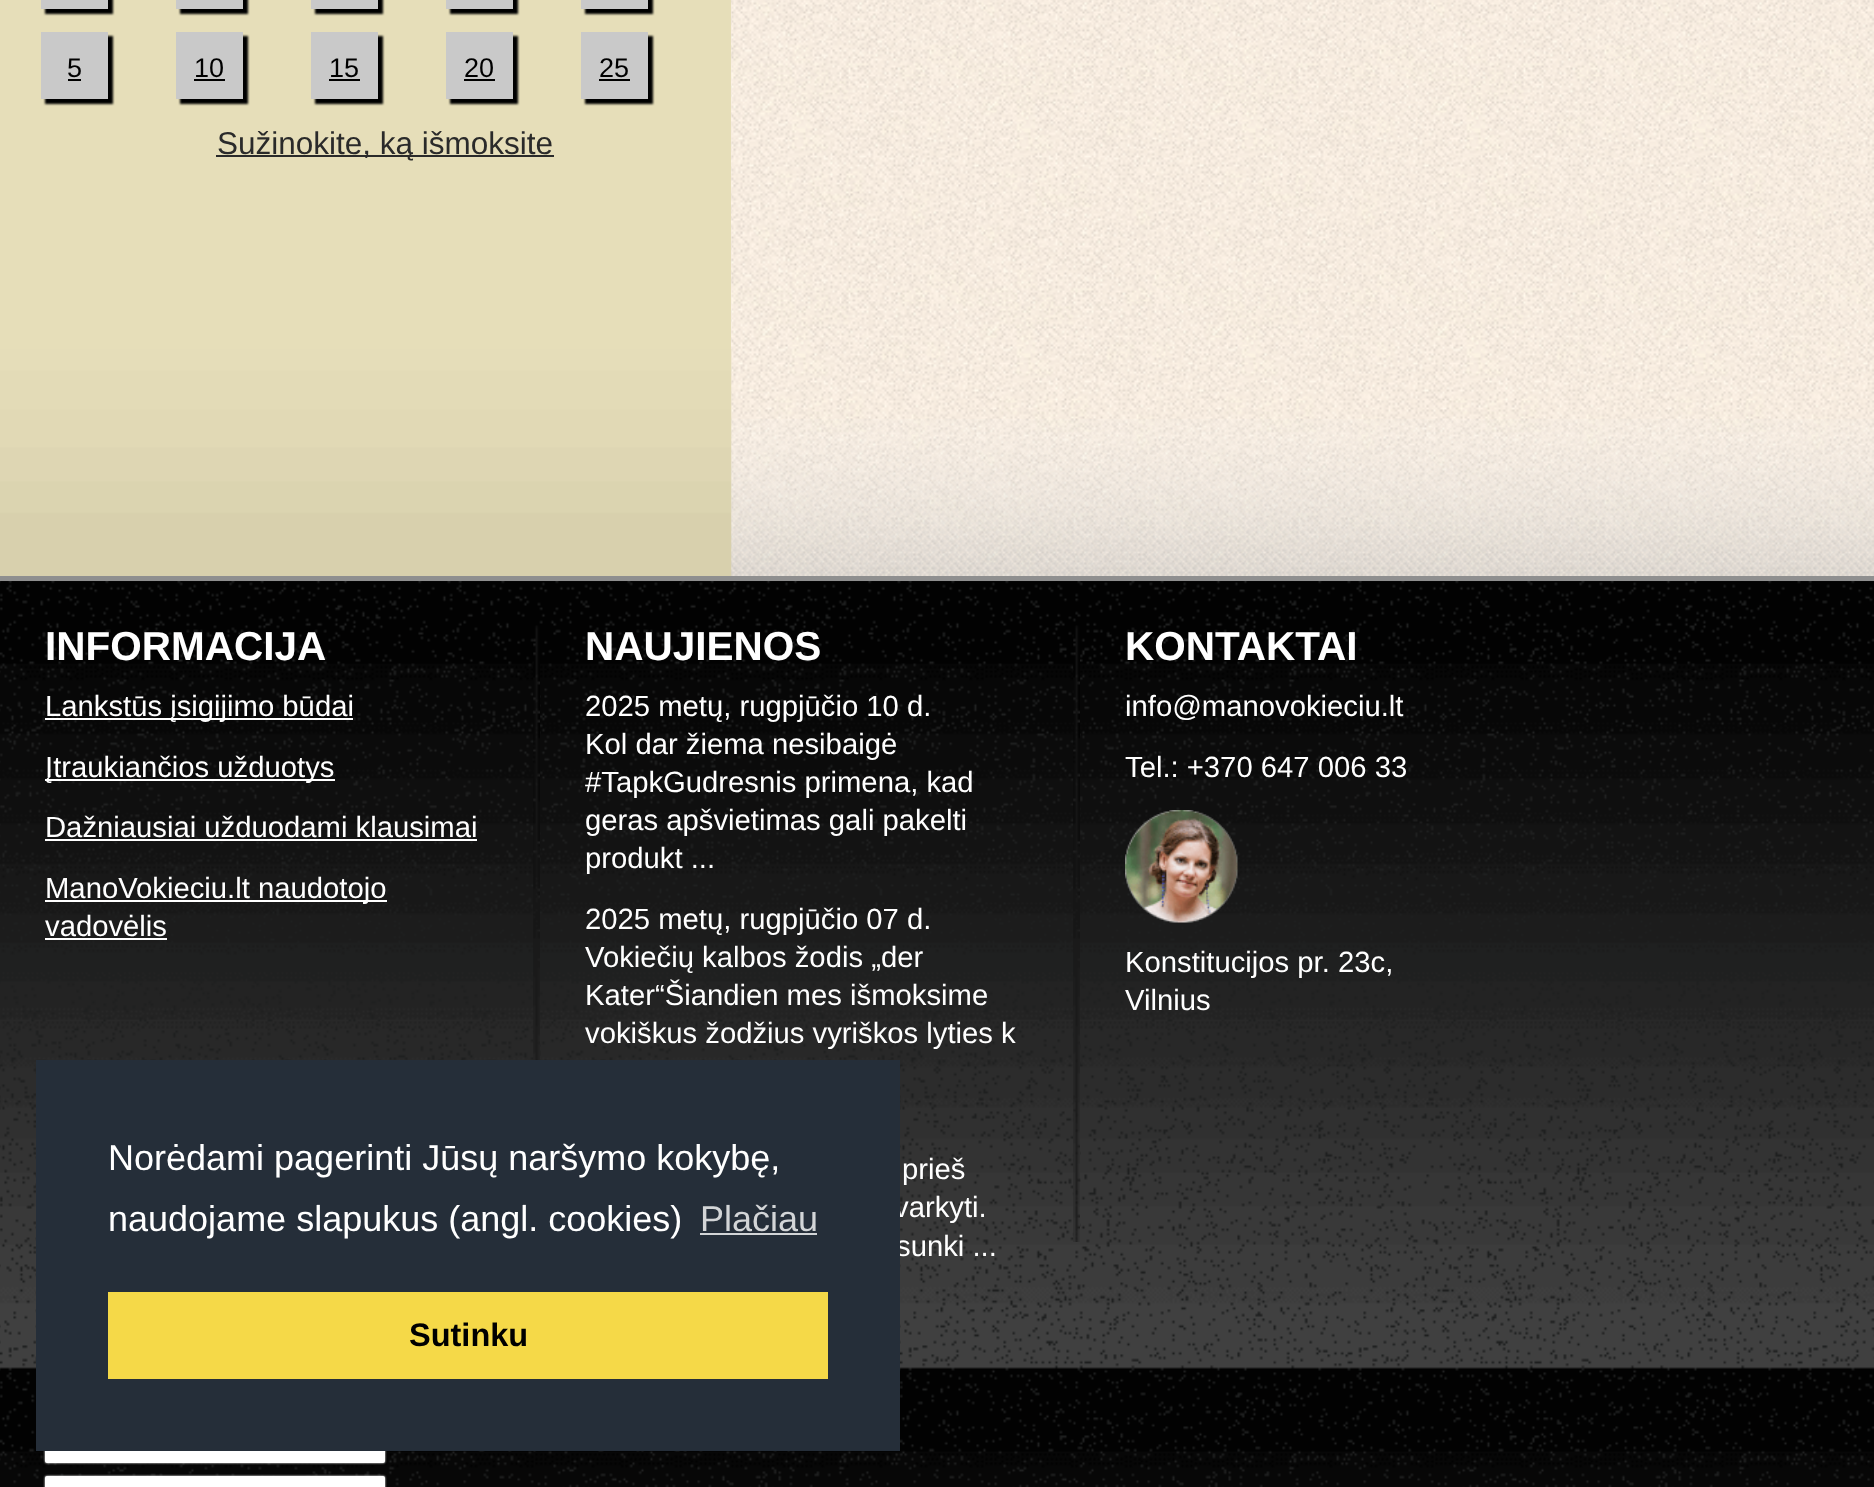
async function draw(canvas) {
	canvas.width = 1874;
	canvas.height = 1487;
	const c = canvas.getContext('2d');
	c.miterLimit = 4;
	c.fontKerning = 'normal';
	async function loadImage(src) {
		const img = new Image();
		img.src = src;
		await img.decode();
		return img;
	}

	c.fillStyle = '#fff';
	c.fillRect(0, 0, 1874, 1487);
	c.drawImage(await loadImage('img1.png'), 731, 0, 1143, 576);
	c.drawImage(await loadImage('img2.png'), 731, 419, 1143, 157);
	c.fillStyle = '#e6deb9';
	c.fillRect(0, 0, 731, 349);
	c.drawImage(await loadImage('img3.png'), 0, 349, 732, 227);
	c.fillStyle = '#000';
	c.filter = 'blur(1px)';
	c.beginPath();
	c.rect(45, -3, 68, 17);
	c.fill();
	c.filter = 'none';
	c.fillStyle = '#c9c9c9';
	c.fillRect(41, 0, 67, 9);
	c.fillStyle = '#000';
	c.filter = 'blur(1px)';
	c.beginPath();
	c.rect(45, 36, 68, 68);
	c.fill();
	c.filter = 'none';
	c.fillStyle = '#c9c9c9';
	c.fillRect(41, 32, 67, 67);
	c.font = '27px Liberation Sans';
	c.fillStyle = '#000';
	c.fillText('5', 67, 77);
	c.fillRect(68, 79, 13, 2);
	c.filter = 'blur(1px)';
	c.beginPath();
	c.rect(180, -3, 68, 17);
	c.fill();
	c.filter = 'none';
	c.fillStyle = '#c9c9c9';
	c.fillRect(176, 0, 67, 9);
	c.fillStyle = '#000';
	c.filter = 'blur(1px)';
	c.beginPath();
	c.rect(180, 36, 68, 68);
	c.fill();
	c.filter = 'none';
	c.fillStyle = '#c9c9c9';
	c.fillRect(176, 32, 67, 67);
	c.fillStyle = '#000';
	c.fillText('10', 194, 77);
	c.fillRect(194, 79, 31, 2);
	c.filter = 'blur(1px)';
	c.beginPath();
	c.rect(315, -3, 68, 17);
	c.fill();
	c.filter = 'none';
	c.fillStyle = '#c9c9c9';
	c.fillRect(311, 0, 67, 9);
	c.fillStyle = '#000';
	c.filter = 'blur(1px)';
	c.beginPath();
	c.rect(315, 36, 68, 68);
	c.fill();
	c.filter = 'none';
	c.fillStyle = '#c9c9c9';
	c.fillRect(311, 32, 67, 67);
	c.fillStyle = '#000';
	c.fillText('15', 329, 77);
	c.fillRect(329, 79, 31, 2);
	c.filter = 'blur(1px)';
	c.beginPath();
	c.rect(450, -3, 68, 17);
	c.fill();
	c.filter = 'none';
	c.fillStyle = '#c9c9c9';
	c.fillRect(446, 0, 67, 9);
	c.fillStyle = '#000';
	c.filter = 'blur(1px)';
	c.beginPath();
	c.rect(450, 36, 68, 68);
	c.fill();
	c.filter = 'none';
	c.fillStyle = '#c9c9c9';
	c.fillRect(446, 32, 67, 67);
	c.fillStyle = '#000';
	c.fillText('20', 464, 77);
	c.fillRect(464, 79, 31, 2);
	c.filter = 'blur(1px)';
	c.beginPath();
	c.rect(585, -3, 68, 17);
	c.fill();
	c.filter = 'none';
	c.fillStyle = '#c9c9c9';
	c.fillRect(581, 0, 67, 9);
	c.fillStyle = '#000';
	c.filter = 'blur(1px)';
	c.beginPath();
	c.rect(585, 36, 68, 68);
	c.fill();
	c.filter = 'none';
	c.fillStyle = '#c9c9c9';
	c.fillRect(581, 32, 67, 67);
	c.fillStyle = '#000';
	c.fillText('25', 599, 77);
	c.fillRect(599, 79, 31, 2);
	c.fillStyle = '#2a2a2a';
	c.fillRect(216, 155, 338, 2);
	c.font = '31.5px Liberation Sans';
	c.fillText('Sužinokite, ką išmoksite', 217, 154);
	c.drawImage(await loadImage('img4.png'), 0, 581, 1874, 906);
	c.fillStyle = '#8f8f8f';
	c.fillRect(0, 576, 1874, 5);
	c.drawImage(await loadImage('img5.png'), 533, 625, 7, 435);
	c.font = 'bold 40.5px Liberation Sans';
	c.fillStyle = '#fff';
	c.fillText('INFORMACIJA', 45, 660);
	c.fillRect(45, 718, 308, 2);
	c.font = '29.25px Liberation Sans';
	c.fillText('Lankstūs įsigijimo būdai', 45, 716);
	c.fillRect(45, 779, 290, 2);
	c.fillText('Įtraukiančios užduotys', 45, 777);
	c.fillText('Dažniausiai užduodami klausimai', 45, 837);
	c.fillRect(45, 839, 432, 2);
	c.fillRect(45, 900, 342, 2);
	c.fillText('ManoVokieciu.lt naudotojo', 45, 898);
	c.fillText('vadovėlis', 45, 936);
	c.fillRect(45, 938, 122, 2);
	c.drawImage(await loadImage('img6.png'), 1073, 625, 7, 617);
	c.font = 'bold 40.5px Liberation Sans';
	c.fillText('NAUJIENOS', 585, 660);
	c.font = '29.25px Liberation Sans';
	for (const [text, x, y] of [
		['2025 metų, rugpjūčio 10 d.', 585, 716],
		['Kol dar žiema nesibaigė', 585, 754],
		['#TapkGudresnis primena, kad', 585, 792],
		['geras apšvietimas gali pakelti', 585, 830],
		['produkt ...', 585, 868],
		['2025 metų, rugpjūčio 07 d.', 585, 929],
		['Vokiečių kalbos žodis „der', 585, 967],
		['Kater“Šiandien mes išmoksime', 585, 1005],
		['vokiškus žodžius vyriškos lyties k', 585, 1043],
		['prieš', 902, 1179],
		['varkyti.', 894, 1217],
		['sunki ...', 896, 1256],
	]) {
		c.fillText(text, x, y);
	}
	c.font = 'bold 40.5px Liberation Sans';
	c.fillText('KONTAKTAI', 1125, 660);
	c.font = '29.25px Liberation Sans';
	c.fillText('info@manovokieciu.lt', 1125, 716);
	c.fillText('Tel.: +370 647 006 33', 1125, 777);
	c.drawImage(await loadImage('img7.png'), 1125, 810, 113, 113);
	c.fillText('Konstitucijos pr. 23c,', 1125, 972);
	c.fillText('Vilnius', 1125, 1010);
	c.filter = 'blur(1px)';
	c.beginPath();
	c.roundRect(45, 1395, 340, 68, 2);
	c.fill();
	c.filter = 'none';
	c.beginPath();
	c.roundRect(45, 1395, 340, 68, 2);
	c.fill();
	c.filter = 'blur(1px)';
	c.beginPath();
	c.roundRect(45, 1476, 340, 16, 2);
	c.fill();
	c.filter = 'none';
	c.beginPath();
	c.roundRect(45, 1476, 340, 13, 2);
	c.fill();
	c.fillStyle = '#252e39';
	c.fillRect(36, 1060, 864, 391);
	c.font = '36px Liberation Sans';
	c.fillStyle = '#fff';
	c.fillText('Norėdami pagerinti Jūsų naršymo kokybę,', 108, 1170);
	c.fillText('naudojame slapukus (angl. cookies)', 108, 1231);
	c.fillStyle = '#d3d5d7';
	c.fillText('Plačiau', 700, 1231);
	c.fillRect(700, 1233, 117, 2);
	c.fillStyle = '#f5d948';
	c.fillRect(108, 1292, 720, 87);
	c.font = 'bold 32.5px Liberation Sans';
	c.fillStyle = '#000';
	c.fillText('Sutinku', 409, 1346);
}

draw(document.querySelector('canvas'));
